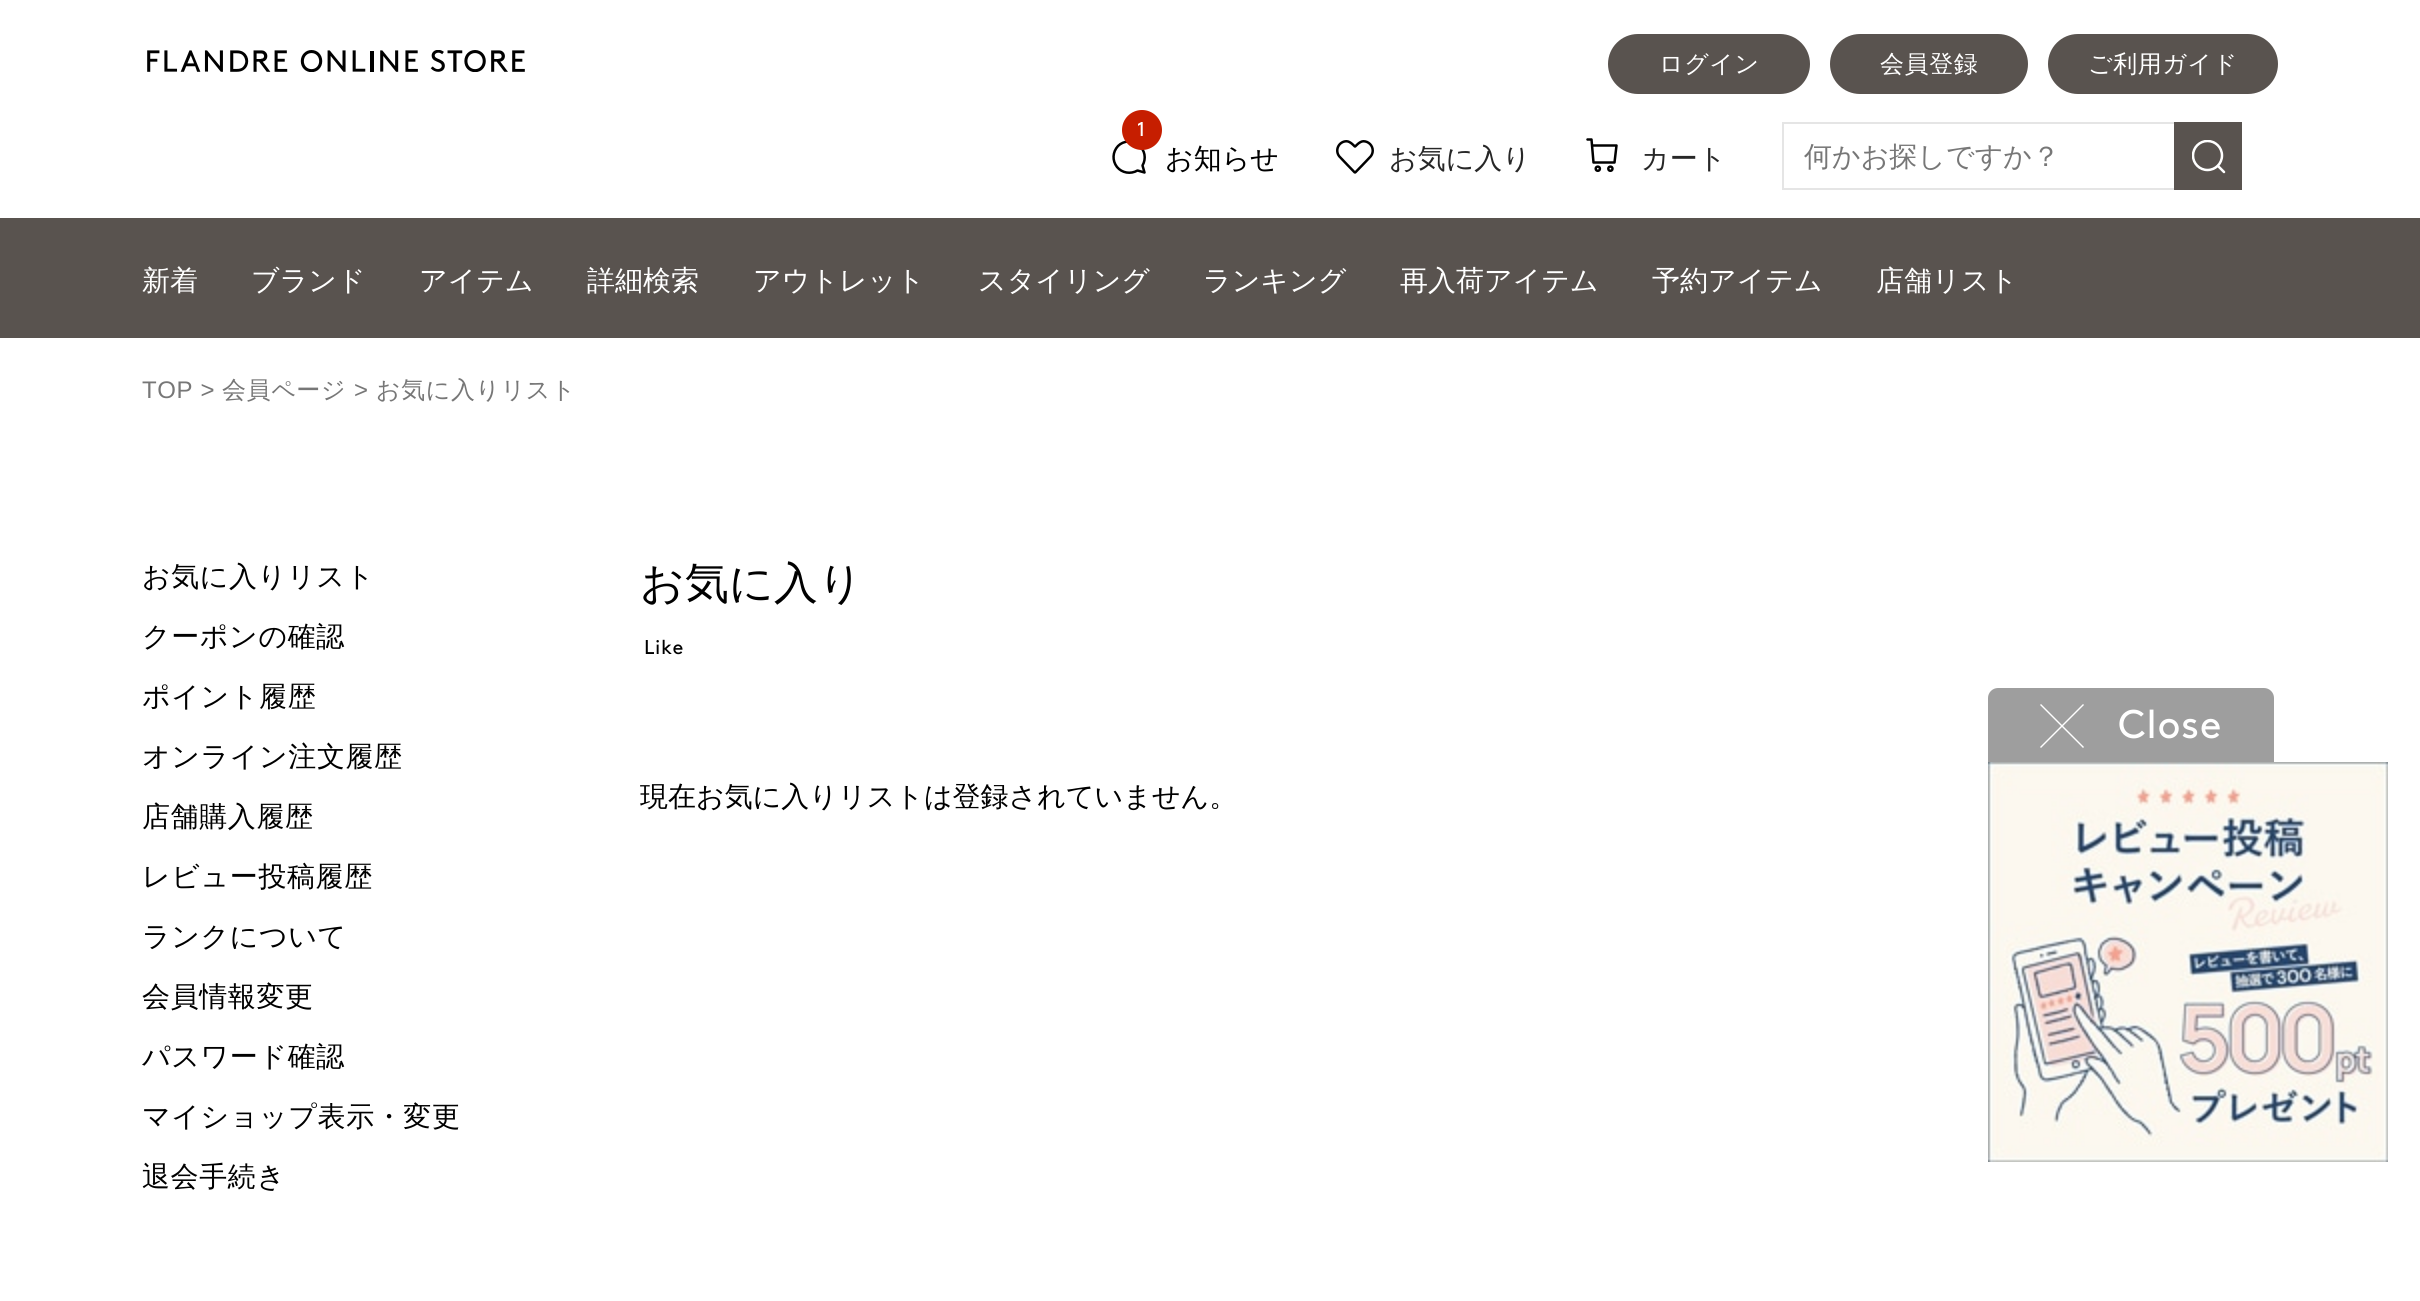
import math
import cairo

surface = cairo.ImageSurface(cairo.FORMAT_RGB24, 2420, 1301)
cr = cairo.Context(surface)
options = cairo.FontOptions()
options.set_hint_metrics(cairo.HINT_METRICS_OFF)
options.set_hint_style(cairo.HINT_STYLE_NONE)
cr.set_font_options(options)
cr.set_miter_limit(4)


def rgb(code):
    cr.set_source_rgb(*(v / 255 for v in bytes.fromhex(code[-6:])))


def tracked(x, y, s, letter, word):
    cr.move_to(x, y)
    for ch in s:
        cr.show_text(ch)
        cr.rel_move_to(letter + word * (ch == ' '), 0)


def rrect(x, y, w, h, r):
    cr.new_sub_path()
    for i, (u, v) in enumerate([(x + w - r, y + h - r), (x + r, y + h - r), (x + r, y + r), (x + w - r, y + r)]):
        cr.arc(u, v, r, i * math.pi / 2, (i + 1) * math.pi / 2)
    cr.close_path()


def image(path, x, y, w, h):
    cr.save()
    cr.set_source_surface(cairo.ImageSurface.create_from_png(path), x, y)
    cr.rectangle(x, y, w, h)
    cr.fill()
    cr.restore()


rgb("#ffffff")
cr.paint()
image("img/1.png", 147, 50, 378, 22)
rgb("#59534f")
rrect(1608, 34, 202, 60, 30)
cr.fill()
rrect(1830, 34, 198, 60, 30)
cr.fill()
rrect(2048, 34, 230, 60, 30)
cr.fill()
cr.new_path()
cr.move_to(1144.5, 172.5)
cr.line_to(1142.5, 165.5)
cr.curve_to(1146.5, 158.5, 1145, 150, 1138.5, 145)
cr.curve_to(1132.5, 140, 1123.5, 140.5, 1118, 146)
cr.curve_to(1112.5, 152, 1112, 160.5, 1117, 167)
cr.curve_to(1122, 173, 1130.5, 174.5, 1137.5, 170.5)
cr.close_path()
rgb("#000000")
cr.set_line_width(2.5)
cr.set_line_cap(cairo.LINE_CAP_ROUND)
cr.set_line_join(cairo.LINE_JOIN_ROUND)
cr.stroke()
rgb("#c61e00")
cr.arc(1142, 130, 20, 0, 2 * math.pi)
cr.fill()
image("img/2.png", 1336, 140, 38, 34)
cr.new_path()
cr.move_to(1592, 145.5)
cr.line_to(1616.5, 145.5)
cr.line_to(1614.5, 162.5)
cr.line_to(1593.5, 162.5)
cr.line_to(1591.5, 139.5)
cr.line_to(1587.5, 139.5)
rgb("#000000")
cr.stroke()
cr.arc(1597.8, 168.7, 2.1, 0, 2 * math.pi)
cr.set_line_cap(cairo.LINE_CAP_BUTT)
cr.set_line_join(cairo.LINE_JOIN_MITER)
cr.stroke()
cr.arc(1610.4, 168.7, 2.1, 0, 2 * math.pi)
cr.stroke()
cr.rectangle(1783, 123, 458, 66)
rgb("#e5e5e5")
cr.set_line_width(2)
cr.stroke()
rgb("#59534f")
cr.rectangle(2174, 122, 68, 68)
cr.fill()
cr.save()
cr.rectangle(2192, 140, 34, 34)
cr.clip()
cr.arc(2207.5, 155.5, 14.5, 0, 2 * math.pi)
rgb("#ffffff")
cr.set_line_width(2.5)
cr.stroke()
cr.restore()
cr.new_path()
cr.move_to(2224, 172)
cr.line_to(2218, 166)
rgb("#ffffff")
cr.set_line_width(2.5)
cr.set_line_cap(cairo.LINE_CAP_ROUND)
cr.stroke()
rgb("#59534f")
cr.rectangle(0, 218, 2420, 120)
cr.fill()
rgb("#9e9e9e")
cr.new_path()
cr.move_to(1998, 688)
cr.line_to(2264, 688)
cr.curve_to(2269.5, 688, 2274, 692.5, 2274, 698)
cr.line_to(2274, 762)
cr.line_to(1988, 762)
cr.line_to(1988, 698)
cr.curve_to(1988, 692.5, 1992.5, 688, 1998, 688)
cr.close_path()
cr.fill()
rgb("#ffffff")
cr.new_path()
cr.move_to(2040, 747)
cr.line_to(2083, 704)
cr.line_to(2084, 705)
cr.line_to(2041, 748)
cr.close_path()
cr.fill()
cr.new_path()
cr.move_to(2041, 704)
cr.line_to(2084, 747)
cr.line_to(2083, 748)
cr.line_to(2040, 705)
cr.close_path()
cr.fill()
image("img/3.png", 1988, 762, 400, 400)
cr.select_font_face("WenQuanYi Zen Hei Medium")
cr.set_font_size(24)
for x, y, s in [
    (1659, 72, "ログイン"),
    (1880, 72, "会員登録"),
    (2088, 72, "ご利用ガイド"),
]:
    tracked(x, y, s, 0.6, 0)
cr.select_font_face("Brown")
cr.set_font_size(20)
tracked(1137, 136, "1", 0.6, 0)
cr.select_font_face("WenQuanYi Zen Hei Medium")
cr.set_font_size(28)
rgb("#000000")
cr.move_to(1165, 168)
cr.show_text("お知らせ")
rgb("#272727")
cr.move_to(1389, 168)
cr.show_text("お気に入り")
cr.move_to(1641, 168)
cr.show_text("カート")
rgb("#777777")
cr.move_to(1804, 166)
cr.show_text("何かお探しですか？")
rgb("#ffffff")
for x, y, s in [
    (142, 290, "新着"),
    (251, 290, "ブランド"),
    (419, 290, "アイテム"),
    (587, 290, "詳細検索"),
    (753, 290, "アウトレット"),
    (978, 290, "スタイリング"),
    (1203, 290, "ランキング"),
    (1400, 290, "再入荷アイテム"),
    (1652, 290, "予約アイテム"),
    (1876, 290, "店舗リスト"),
]:
    cr.move_to(x, y)
    cr.show_text(s)
cr.select_font_face("Liberation Sans")
cr.set_font_size(24)
rgb("#777777")
tracked(142, 398, "TOP >", 0.6, 0)
cr.select_font_face("WenQuanYi Zen Hei Medium")
tracked(222, 398, "会員ページ", 0.6, 0)
cr.select_font_face("Liberation Sans")
tracked(354, 398, ">", 0.6, 0)
cr.select_font_face("WenQuanYi Zen Hei Medium")
tracked(376, 398, "お気に入りリスト", 0.6, 0)
cr.set_font_size(28)
rgb("#000000")
for x, y, s in [
    (142, 586, "お気に入りリスト"),
    (142, 646, "クーポンの確認"),
    (142, 706, "ポイント履歴"),
    (142, 766, "オンライン注文履歴"),
    (142, 826, "店舗購入履歴"),
    (142, 886, "レビュー投稿履歴"),
    (142, 946, "ランクについて"),
    (142, 1006, "会員情報変更"),
    (142, 1066, "パスワード確認"),
    (142, 1126, "マイショップ表示・変更"),
    (142, 1186, "退会手続き"),
]:
    tracked(x, y, s, 0.6, 0)
cr.set_font_size(44)
cr.move_to(640, 598)
cr.show_text("お気に入り")
cr.select_font_face("Brown")
cr.set_font_size(20)
tracked(644, 654, "Like", 0.6, 0)
cr.select_font_face("WenQuanYi Zen Hei Medium")
cr.set_font_size(28)
cr.move_to(640, 806)
cr.show_text("現在お気に入りリストは登録されていません。")
cr.select_font_face("Brown")
cr.set_font_size(40)
rgb("#ffffff")
tracked(2118, 738, "Close", 0.6, 0)
surface.write_to_png("page.png")
